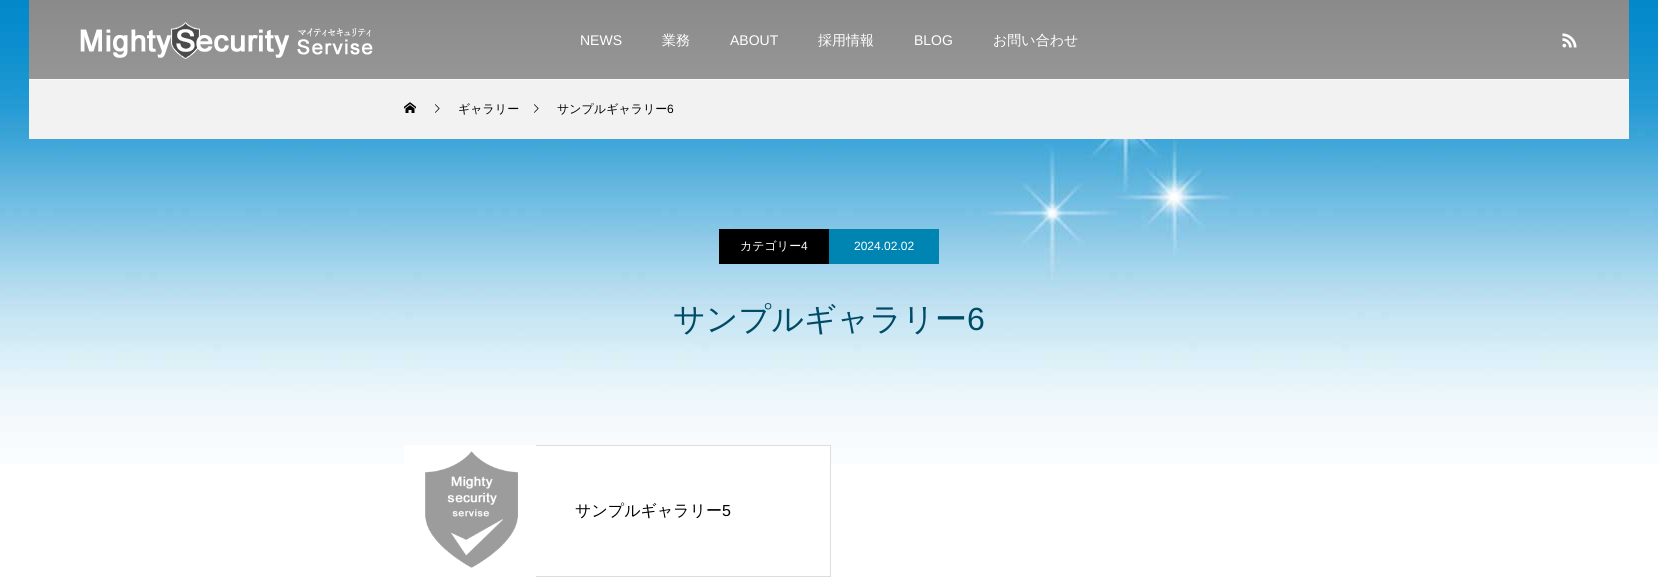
import math
import cairo

surface = cairo.ImageSurface(cairo.FORMAT_RGB24, 1658, 578)
cr = cairo.Context(surface)
options = cairo.FontOptions()
options.set_hint_metrics(cairo.HINT_METRICS_OFF)
options.set_hint_style(cairo.HINT_STYLE_NONE)
cr.set_font_options(options)
cr.set_miter_limit(4)


def rgb(code):
    cr.set_source_rgb(*(v / 255 for v in bytes.fromhex(code[-6:])))


def image(path, x, y, w, h):
    cr.save()
    cr.set_source_surface(cairo.ImageSurface.create_from_png(path), x, y)
    cr.rectangle(x, y, w, h)
    cr.fill()
    cr.restore()


rgb("#ffffff")
cr.paint()
image("img/1.png", 0, 0, 1658, 464)
gradient = cairo.LinearGradient(829, 0, 829, 395)
gradient.add_color_stop_rgba(0, 0.541, 0.541, 0.541, 1)
gradient.add_color_stop_rgba(1, 0.773, 0.773, 0.773, 1)
cr.set_source(gradient)
cr.rectangle(29, 0, 1600, 79)
cr.fill()
rgb("#f9f9f9")
cr.rectangle(29, 79, 1600, 1)
cr.fill()
image("img/2.png", 80, 22, 293, 37)
image("img/3.png", 1562, 33, 15, 15)
rgb("#f2f2f2")
cr.rectangle(29, 80, 1600, 59)
cr.fill()
image("img/4.png", 404, 102, 12, 11)
image("img/5.png", 435, 104, 5, 9)
image("img/5.png", 534, 104, 5, 9)
for x, y, w, h, color in [
    (719, 229, 110, 35, "#000000"),
    (829, 229, 110, 35, "#0085b2"),
    (536, 446, 294, 18, "#ffffff"),
]:
    rgb(color)
    cr.rectangle(x, y, w, h)
    cr.fill()
cr.rectangle(404.5, 445.5, 426, 131)
rgb("#dddddd")
cr.set_line_width(1)
cr.stroke()
rgb("#ffffff")
cr.rectangle(404, 445, 132, 132)
cr.fill()
image("img/6.png", 425, 451, 93, 117)
cr.select_font_face("Liberation Sans")
cr.set_font_size(14)
cr.move_to(580, 45)
cr.show_text("NEWS")
cr.select_font_face("WenQuanYi Zen Hei Medium")
cr.move_to(662, 45)
cr.show_text("業務")
cr.select_font_face("Liberation Sans")
cr.move_to(730, 45)
cr.show_text("ABOUT")
cr.select_font_face("WenQuanYi Zen Hei Medium")
cr.move_to(818, 45)
cr.show_text("採用情報")
cr.select_font_face("Liberation Sans")
cr.move_to(914, 45)
cr.show_text("BLOG")
cr.select_font_face("WenQuanYi Zen Hei Medium")
cr.move_to(993, 45)
cr.show_text("お問い合わせ")
cr.set_font_size(12)
rgb("#000000")
cr.move_to(458, 113)
cr.show_text("ギャラリー")
cr.move_to(557, 113)
cr.show_text("サンプルギャラリー")
cr.select_font_face("Liberation Sans")
cr.move_to(667, 113)
cr.show_text("6")
cr.select_font_face("WenQuanYi Zen Hei Medium")
rgb("#ffffff")
cr.move_to(740, 250)
cr.show_text("カテゴリー")
cr.select_font_face("Liberation Sans")
cr.move_to(801, 250)
cr.show_text("4")
cr.move_to(854, 250)
cr.show_text("2024.02.02")
cr.select_font_face("WenQuanYi Zen Hei Medium")
cr.set_font_size(32)
rgb("#004b66")
cr.move_to(673, 330)
cr.show_text("サンプルギャラリー")
cr.select_font_face("Liberation Sans")
cr.move_to(967, 330)
cr.show_text("6")
cr.select_font_face("WenQuanYi Zen Hei Medium")
cr.set_font_size(16)
rgb("#000000")
cr.move_to(575, 516)
cr.show_text("サンプルギャラリー")
cr.select_font_face("Liberation Sans")
cr.move_to(722, 516)
cr.show_text("5")
surface.write_to_png("page.png")
